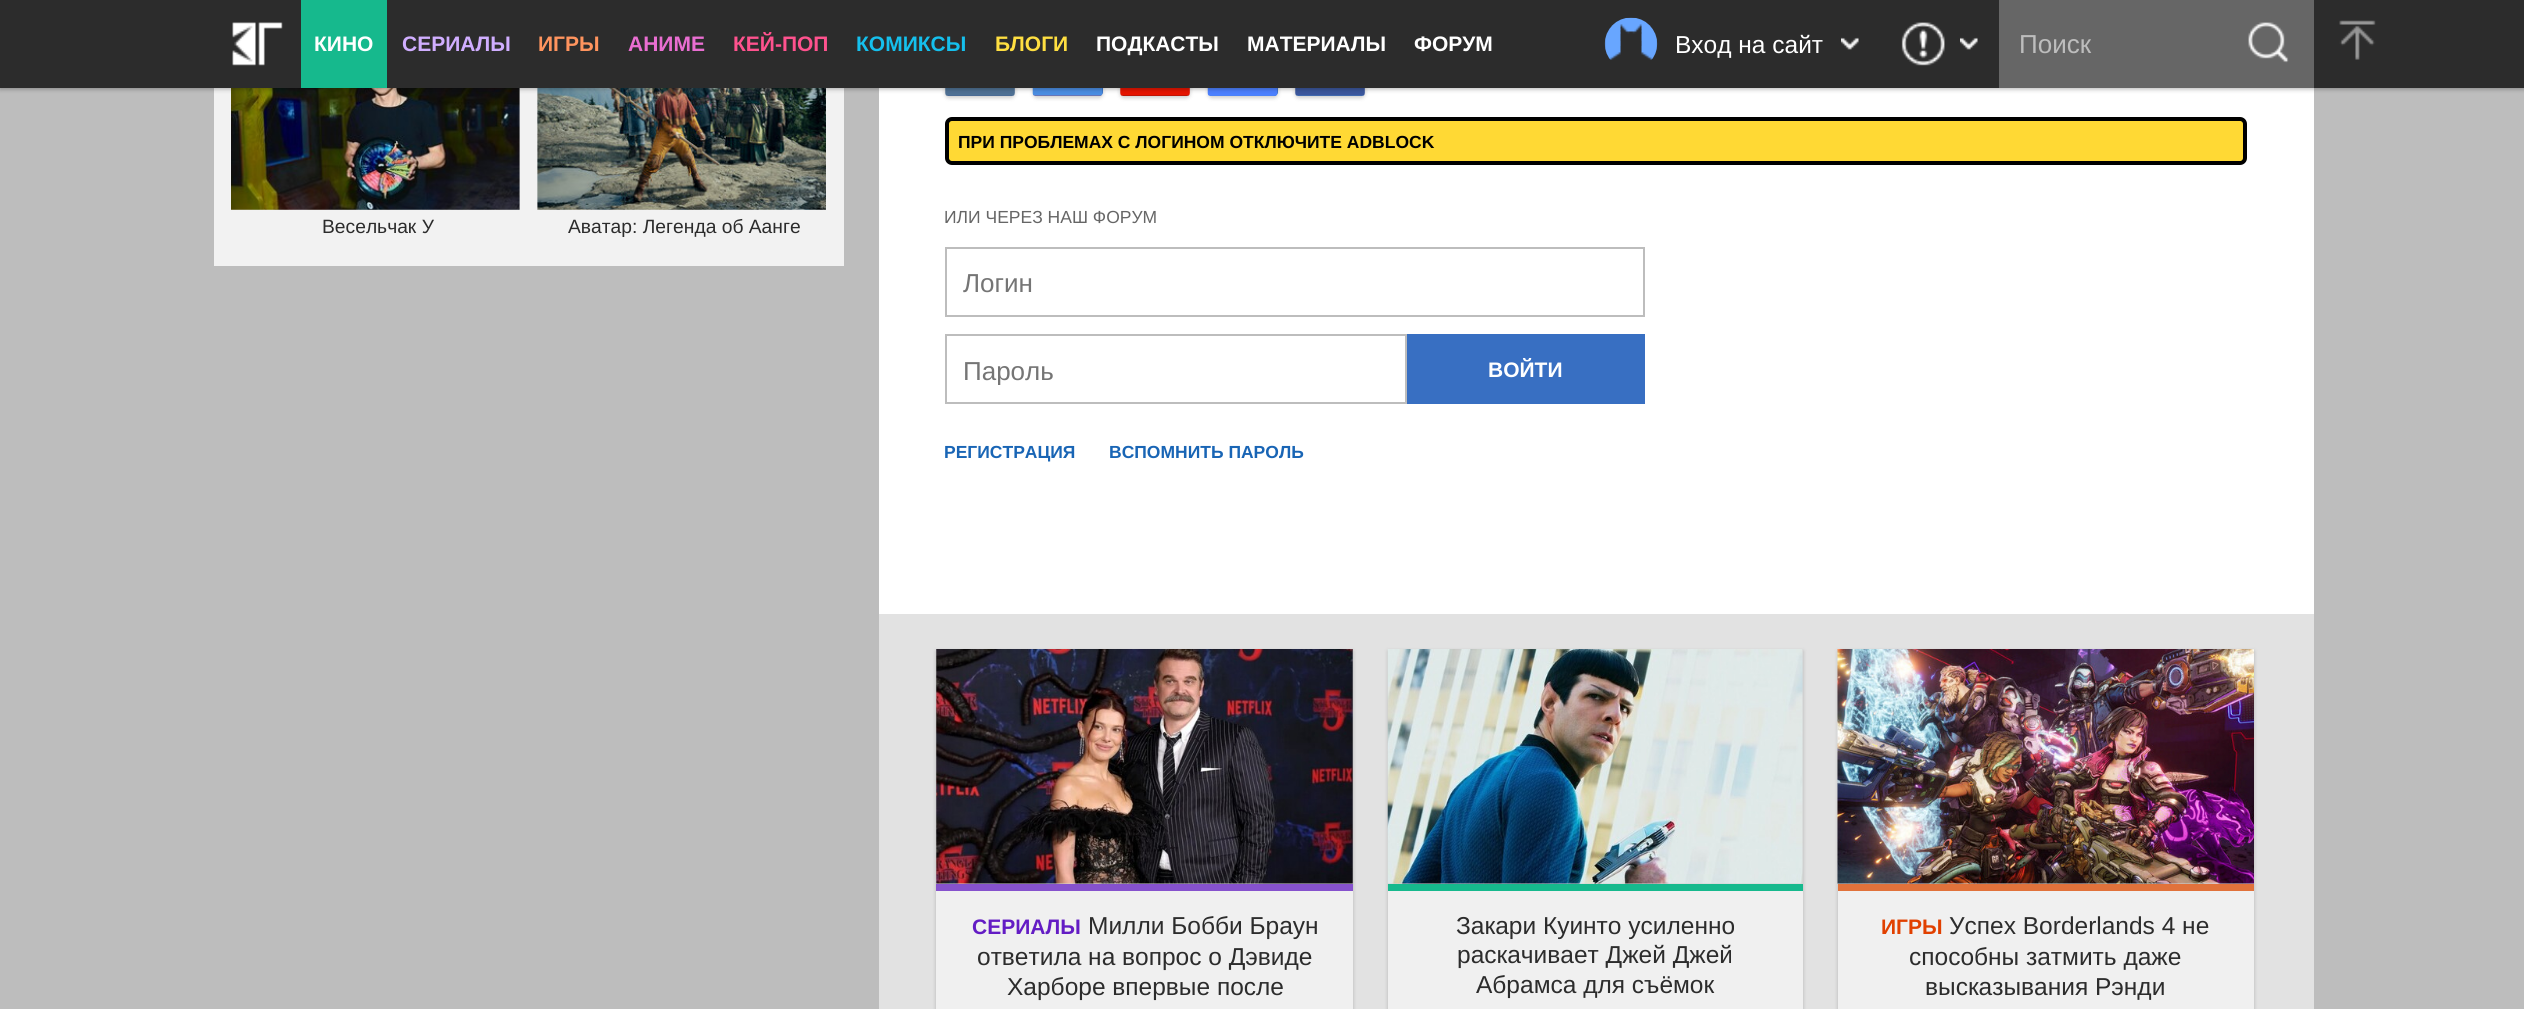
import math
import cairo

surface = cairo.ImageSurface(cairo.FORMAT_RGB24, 2524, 1009)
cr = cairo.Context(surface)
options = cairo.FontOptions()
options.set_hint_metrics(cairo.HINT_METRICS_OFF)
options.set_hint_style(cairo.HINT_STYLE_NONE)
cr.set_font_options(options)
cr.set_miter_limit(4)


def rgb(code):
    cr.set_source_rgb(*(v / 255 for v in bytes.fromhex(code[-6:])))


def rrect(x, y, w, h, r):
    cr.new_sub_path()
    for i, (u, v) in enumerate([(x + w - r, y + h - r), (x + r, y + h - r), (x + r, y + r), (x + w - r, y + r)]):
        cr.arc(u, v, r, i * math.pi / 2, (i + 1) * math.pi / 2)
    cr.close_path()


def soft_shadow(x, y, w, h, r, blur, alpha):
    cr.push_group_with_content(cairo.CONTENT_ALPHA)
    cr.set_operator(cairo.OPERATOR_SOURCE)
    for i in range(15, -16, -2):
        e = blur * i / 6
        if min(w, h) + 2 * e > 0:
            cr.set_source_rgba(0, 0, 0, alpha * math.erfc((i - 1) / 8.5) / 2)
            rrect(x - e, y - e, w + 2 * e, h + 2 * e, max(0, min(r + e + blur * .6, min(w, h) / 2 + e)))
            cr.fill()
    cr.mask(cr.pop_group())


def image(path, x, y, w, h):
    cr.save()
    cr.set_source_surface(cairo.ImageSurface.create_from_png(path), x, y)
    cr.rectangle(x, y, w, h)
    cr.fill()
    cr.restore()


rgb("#bdbdbd")
cr.paint()
rgb("#f2f2f2")
cr.rectangle(214, 88, 630, 178)
cr.fill()
rgb("#e2e2e2")
cr.rectangle(231, 88, 289, 122)
cr.fill()
image("img/8.png", 231, 88, 289, 122)
cr.rectangle(537, 88, 289, 122)
cr.fill()
image("img/9.png", 537, 88, 289, 122)
rgb("#ffffff")
cr.rectangle(879, 88, 1435, 526)
cr.fill()
rgb("#000000")
soft_shadow(945, 28, 70, 70, 4, 2, 0.2)
image("img/10.png", 945, 88, 70, 8)
soft_shadow(1033, 28, 70, 70, 4, 2, 0.2)
rgb("#386fc2")
rrect(1033, 26, 70, 70, 4)
cr.fill()
image("img/11.png", 1032, 88, 71, 8)
rgb("#000000")
soft_shadow(1120, 28, 70, 70, 4, 2, 0.2)
image("img/12.png", 1120, 88, 70, 8)
soft_shadow(1208, 28, 70, 70, 4, 2, 0.2)
rgb("#386fc2")
rrect(1208, 26, 70, 70, 4)
cr.fill()
image("img/13.png", 1207, 88, 71, 8)
rgb("#000000")
soft_shadow(1295, 28, 70, 70, 4, 2, 0.2)
image("img/14.png", 1295, 88, 70, 8)
soft_shadow(0, 2, 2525, 87, 0, 2.5, 0.3)
rgb("#2c2c2c")
cr.rectangle(0, 0, 2524, 88)
cr.fill()
image("img/1.png", 232, 22, 51, 44)
rgb("#16b98d")
cr.rectangle(301, 0, 86, 88)
cr.fill()
image("img/2.png", 1604, 17, 54, 43)
image("img/3.png", 1841, 37, 18, 13)
image("img/4.png", 1901, 22, 44, 44)
image("img/5.png", 1960, 37, 18, 13)
rgb("#666666")
cr.rectangle(1999, 0, 315, 88)
cr.fill()
image("img/6.png", 2248, 22, 41, 41)
image("img/7.png", 2339, 20, 37, 40)
rgb("#ffd934")
rrect(947, 119, 1298, 44, 5)
cr.fill_preserve()
rgb("#000000")
cr.set_line_width(4)
cr.stroke()
cr.rectangle(946, 248, 698, 68)
rgb("#bdbdbd")
cr.set_line_width(2)
cr.stroke()
cr.rectangle(946, 335, 460, 68)
cr.stroke()
rgb("#386fc2")
cr.rectangle(1407, 334, 238, 70)
cr.fill()
rgb("#e2e2e2")
cr.rectangle(879, 614, 1435, 395)
cr.fill()
rgb("#000000")
soft_shadow(936, 651, 417, 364, 0, 2, 0.2)
rgb("#f0f0f0")
cr.rectangle(936, 891, 417, 118)
cr.fill()
rgb("#d3d3d3")
cr.rectangle(936, 649, 417, 235)
cr.fill()
image("img/15.png", 936, 649, 417, 235)
rgb("#8652cd")
cr.rectangle(936, 884, 417, 7)
cr.fill()
rgb("#000000")
soft_shadow(1388, 651, 415, 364, 0, 2, 0.2)
rgb("#f0f0f0")
cr.rectangle(1388, 891, 415, 118)
cr.fill()
rgb("#d3d3d3")
cr.rectangle(1388, 649, 415, 235)
cr.fill()
image("img/16.png", 1387, 649, 416, 235)
rgb("#16b98d")
cr.rectangle(1388, 884, 415, 7)
cr.fill()
rgb("#000000")
soft_shadow(1838, 651, 416, 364, 0, 2, 0.2)
rgb("#f0f0f0")
cr.rectangle(1838, 891, 416, 118)
cr.fill()
rgb("#d3d3d3")
cr.rectangle(1838, 883, 416, 1)
cr.fill()
image("img/17.png", 1837, 649, 417, 235)
rgb("#e1723b")
cr.rectangle(1838, 884, 416, 7)
cr.fill()
cr.select_font_face("Liberation Sans", cairo.FONT_SLANT_NORMAL, cairo.FONT_WEIGHT_BOLD)
cr.set_font_size(21)
rgb("#ffffff")
cr.move_to(314, 51)
cr.show_text("КИНО")
rgb("#d0aeff")
cr.move_to(402, 51)
cr.show_text("СЕРИАЛЫ")
rgb("#ff945e")
cr.move_to(538, 51)
cr.show_text("ИГРЫ")
rgb("#e96ed1")
cr.move_to(628, 51)
cr.show_text("АНИМЕ")
rgb("#ff528e")
cr.move_to(733, 51)
cr.show_text("КЕЙ-ПОП")
rgb("#15c0ed")
cr.move_to(856, 51)
cr.show_text("КОМИКСЫ")
rgb("#ffdf41")
cr.move_to(995, 51)
cr.show_text("БЛОГИ")
rgb("#ffffff")
for x, y, s in [
    (1096, 51, "ПОДКАСТЫ"),
    (1247, 51, "МАТЕРИАЛЫ"),
    (1414, 51, "ФОРУМ"),
]:
    cr.move_to(x, y)
    cr.show_text(s)
cr.select_font_face("Liberation Sans")
cr.set_font_size(24.5)
cr.move_to(1675, 53)
cr.show_text("Вход на сайт")
cr.set_font_size(26)
rgb("#bdbdbd")
cr.move_to(2019, 53)
cr.show_text("Поиск")
cr.set_font_size(19.25)
rgb("#2c2c2c")
cr.move_to(322, 233)
cr.show_text("Весельчак У")
cr.move_to(568, 233)
cr.show_text("Аватар: Легенда об Аанге")
cr.select_font_face("Liberation Sans", cairo.FONT_SLANT_NORMAL, cairo.FONT_WEIGHT_BOLD)
cr.set_font_size(17.5)
rgb("#000000")
cr.move_to(958, 148)
cr.show_text("ПРИ ПРОБЛЕМАХ С ЛОГИНОМ ОТКЛЮЧИТЕ ADBLOCK")
cr.select_font_face("Liberation Sans")
rgb("#666666")
cr.move_to(944, 223)
cr.show_text("ИЛИ ЧЕРЕЗ НАШ ФОРУМ")
cr.set_font_size(26)
rgb("#757575")
cr.move_to(963, 292)
cr.show_text("Логин")
cr.save()
cr.rectangle(964, 355, 424, 30)
cr.clip()
cr.move_to(963, 380)
cr.show_text("Пароль")
cr.restore()
cr.select_font_face("Liberation Sans", cairo.FONT_SLANT_NORMAL, cairo.FONT_WEIGHT_BOLD)
cr.set_font_size(21)
rgb("#ffffff")
cr.move_to(1488, 377)
cr.show_text("ВОЙТИ")
cr.set_font_size(17.5)
rgb("#1965b5")
cr.move_to(944, 458)
cr.show_text("РЕГИСТРАЦИЯ")
cr.move_to(1109, 458)
cr.show_text("ВСПОМНИТЬ ПАРОЛЬ")
cr.set_font_size(21)
rgb("#631cc4")
cr.move_to(972, 934)
cr.show_text("СЕРИАЛЫ")
cr.select_font_face("Liberation Sans")
cr.set_font_size(24.5)
rgb("#2c2c2c")
for x, y, s in [
    (1088, 934, "Милли Бобби Браун"),
    (977, 965, "ответила на вопрос о Дэвиде"),
    (1007, 995, "Харборе впервые после"),
    (1456, 934, "Закари Куинто усиленно"),
    (1457, 963, "раскачивает Джей Джей"),
    (1476, 993, "Абрамса для съёмок"),
]:
    cr.move_to(x, y)
    cr.show_text(s)
cr.select_font_face("Liberation Sans", cairo.FONT_SLANT_NORMAL, cairo.FONT_WEIGHT_BOLD)
cr.set_font_size(21)
rgb("#e14000")
cr.move_to(1881, 934)
cr.show_text("ИГРЫ")
cr.select_font_face("Liberation Sans")
cr.set_font_size(24.5)
rgb("#2c2c2c")
for x, y, s in [
    (1949, 934, "Успех Borderlands 4 не"),
    (1909, 965, "способны затмить даже"),
    (1925, 995, "высказывания Рэнди"),
]:
    cr.move_to(x, y)
    cr.show_text(s)
surface.write_to_png("page.png")
